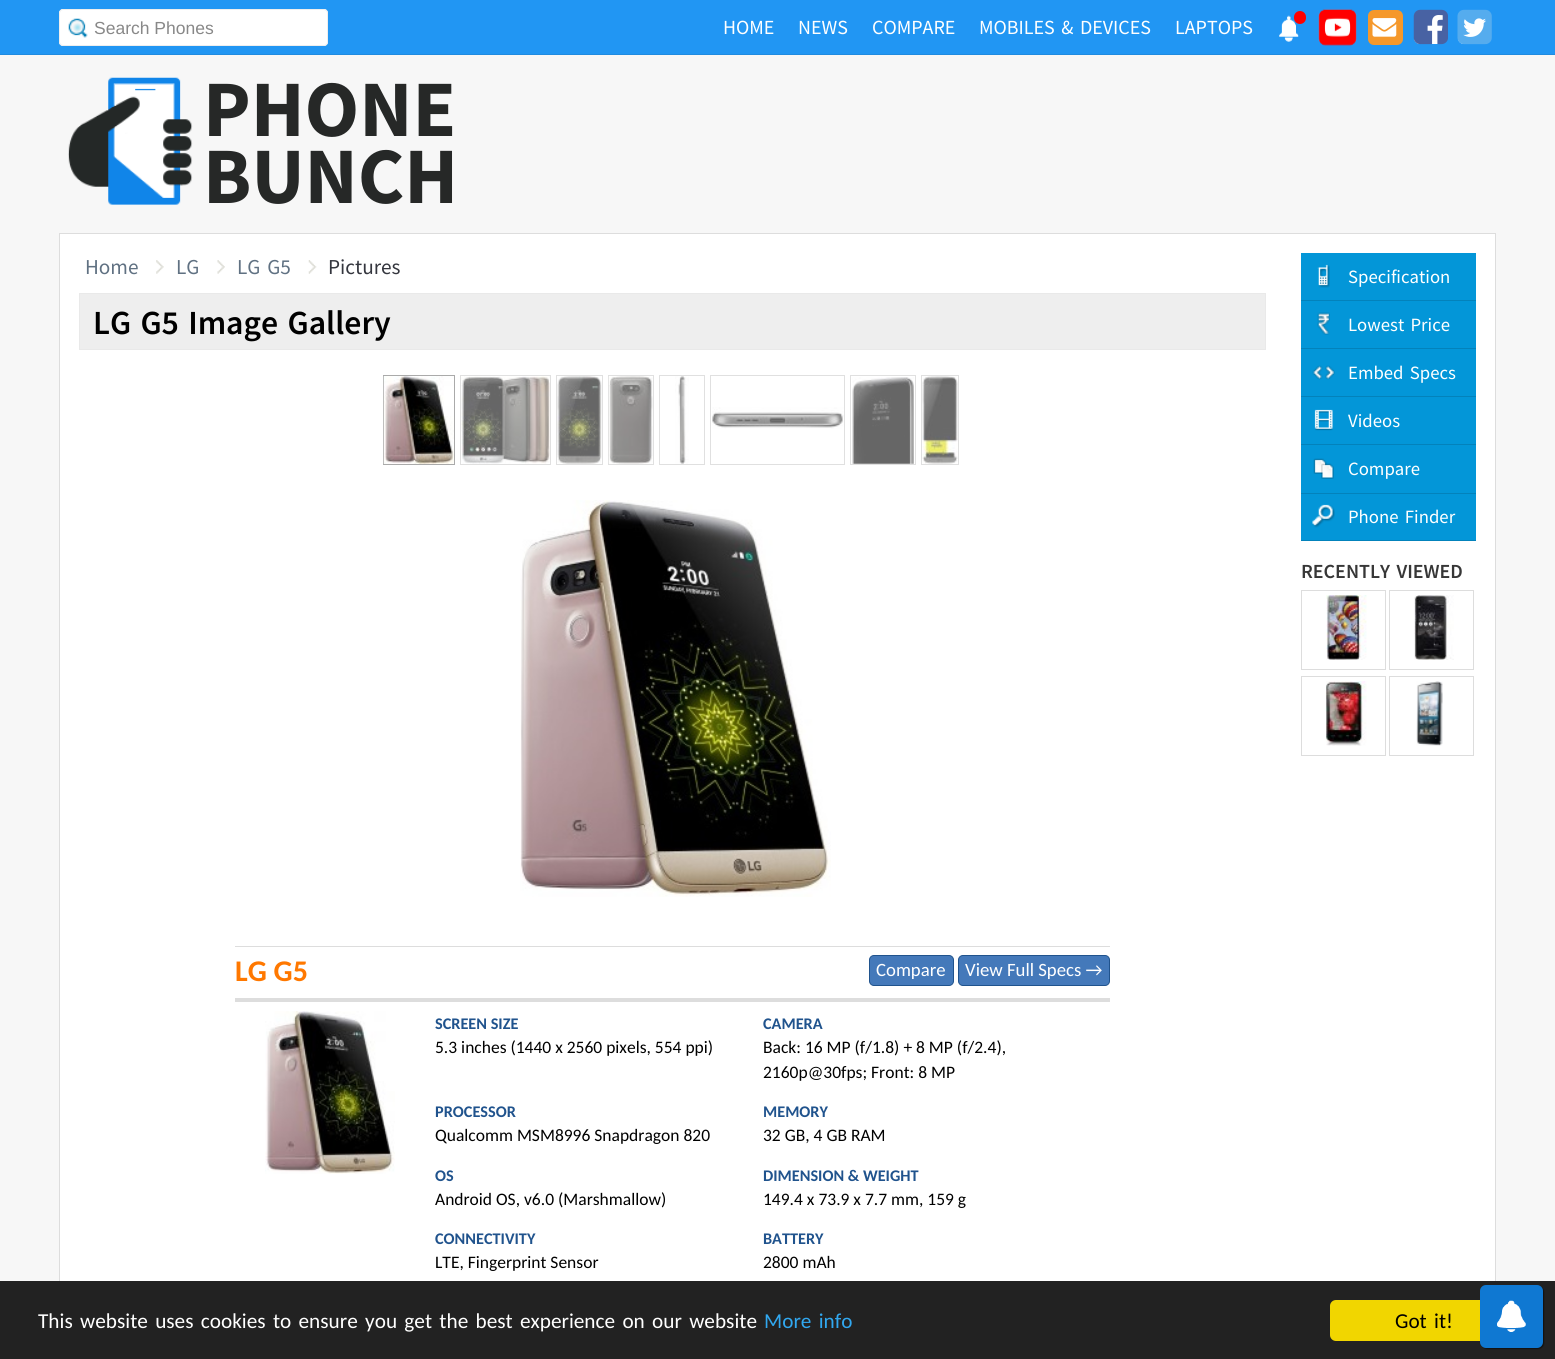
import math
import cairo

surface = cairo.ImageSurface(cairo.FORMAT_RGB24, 1555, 1359)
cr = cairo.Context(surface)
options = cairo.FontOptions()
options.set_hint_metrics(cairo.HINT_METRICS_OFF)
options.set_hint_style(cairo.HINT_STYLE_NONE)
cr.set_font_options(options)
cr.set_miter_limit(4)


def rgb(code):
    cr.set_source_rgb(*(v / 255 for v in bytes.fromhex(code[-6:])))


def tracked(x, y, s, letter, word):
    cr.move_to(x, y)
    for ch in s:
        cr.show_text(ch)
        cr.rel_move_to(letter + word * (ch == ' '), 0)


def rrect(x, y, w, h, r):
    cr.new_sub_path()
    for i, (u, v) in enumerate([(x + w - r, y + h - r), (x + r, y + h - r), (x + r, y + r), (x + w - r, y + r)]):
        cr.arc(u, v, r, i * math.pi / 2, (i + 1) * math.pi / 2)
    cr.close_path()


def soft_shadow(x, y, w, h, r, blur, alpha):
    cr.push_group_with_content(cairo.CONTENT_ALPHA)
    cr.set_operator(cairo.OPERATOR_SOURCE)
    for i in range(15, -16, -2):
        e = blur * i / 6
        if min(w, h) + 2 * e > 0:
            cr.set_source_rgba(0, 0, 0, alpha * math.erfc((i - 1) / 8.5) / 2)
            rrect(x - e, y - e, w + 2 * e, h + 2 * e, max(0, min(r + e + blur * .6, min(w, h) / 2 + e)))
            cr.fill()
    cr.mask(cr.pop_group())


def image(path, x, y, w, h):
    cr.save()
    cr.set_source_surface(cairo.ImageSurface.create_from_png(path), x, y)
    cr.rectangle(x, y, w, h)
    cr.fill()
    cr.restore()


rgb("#f7f7f7")
cr.paint()
rgb("#2196f3")
cr.rectangle(0, 0, 1555, 54)
cr.fill()
rgb("#208be0")
cr.rectangle(0, 54, 1555, 1)
cr.fill()
rgb("#ffffff")
rrect(59, 9, 269, 37, 4)
cr.fill()
image("img/1.png", 68, 18, 20, 20)
rrect(59.5, 9.5, 268, 36, 3.5)
rgb("#eeeeee")
cr.set_line_width(1)
cr.stroke()
image("img/2.png", 1279, 15, 20, 27)
rgb("#ff0000")
rrect(1294, 11, 12, 13, 6)
cr.fill()
image("img/3.png", 1318, 8, 39, 38)
rgb("#f5982b")
rrect(1368, 10, 35, 35, 6)
cr.fill()
image("img/4.png", 1372, 18, 25, 19)
rgb("#ffffff")
rrect(1414, 11, 32, 33, 6)
cr.fill()
image("img/5.png", 1413, 9, 35, 36)
rrect(1458, 11, 32, 33, 6)
cr.fill()
image("img/6.png", 1457, 9, 35, 36)
image("img/7.png", 68, 77, 125, 128)
cr.rectangle(60, 234, 1435, 1047)
cr.fill()
cr.rectangle(59.5, 233.5, 1436, 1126)
rgb("#dddddd")
cr.stroke()
image("img/8.png", 156, 260, 8, 14)
image("img/9.png", 217, 260, 8, 14)
image("img/10.png", 308, 260, 9, 14)
rgb("#eeeeee")
cr.rectangle(79.5, 293.5, 1186, 56)
cr.fill_preserve()
rgb("#e9e9e9")
cr.stroke()
cr.rectangle(383.5, 375.5, 71, 89)
rgb("#aaaaaa")
cr.stroke()
cr.rectangle(460.5, 375.5, 90, 89)
rgb("#e0e0e0")
cr.stroke()
cr.rectangle(556.5, 375.5, 46, 89)
cr.stroke()
cr.rectangle(608.5, 375.5, 45, 89)
cr.stroke()
cr.rectangle(659.5, 375.5, 45, 89)
cr.stroke()
cr.rectangle(710.5, 375.5, 134, 89)
cr.stroke()
cr.rectangle(850.5, 375.5, 65, 89)
cr.stroke()
cr.rectangle(921.5, 375.5, 37, 89)
cr.stroke()
image("img/11.png", 383, 376, 71, 88)
image("img/12.png", 461, 376, 89, 88)
image("img/13.png", 557, 376, 45, 88)
image("img/14.png", 608, 376, 45, 88)
image("img/15.png", 675, 376, 14, 88)
image("img/16.png", 712, 407, 132, 22)
image("img/17.png", 852, 377, 62, 87)
image("img/18.png", 922, 376, 36, 88)
image("img/19.png", 520, 500, 311, 397)
rgb("#dddddd")
cr.rectangle(235, 946, 875, 1)
cr.fill()
rgb("#4479ba")
rrect(869.5, 955.5, 84, 30, 4.5)
cr.fill_preserve()
rgb("#20538d")
cr.stroke()
rgb("#4479ba")
rrect(958.5, 955.5, 151, 30, 4.5)
cr.fill_preserve()
rgb("#20538d")
cr.stroke()
rgb("#dddddd")
cr.rectangle(235, 998, 875, 4)
cr.fill()
image("img/20.png", 265, 1011, 130, 163)
rgb("#0396d8")
cr.rectangle(1301, 253, 175, 47)
cr.fill()
rgb("#0382bb")
cr.rectangle(1301, 300, 175, 1)
cr.fill()
image("img/21.png", 1317, 264, 13, 24)
rgb("#0396d8")
cr.rectangle(1301, 301, 175, 47)
cr.fill()
rgb("#0382bb")
cr.rectangle(1301, 348, 175, 1)
cr.fill()
image("img/22.png", 1317, 312, 13, 23)
rgb("#0396d8")
cr.rectangle(1301, 349, 175, 95)
cr.fill()
rgb("#0382bb")
cr.rectangle(1301, 396, 175, 1)
cr.fill()
image("img/23.png", 1312, 365, 23, 15)
cr.rectangle(1301, 444, 175, 1)
cr.fill()
image("img/24.png", 1314, 409, 19, 22)
rgb("#0396d8")
cr.rectangle(1301, 445, 175, 48)
cr.fill()
rgb("#0382bb")
cr.rectangle(1301, 493, 175, 1)
cr.fill()
image("img/25.png", 1313, 458, 21, 21)
rgb("#0396d8")
cr.rectangle(1301, 494, 175, 46)
cr.fill()
rgb("#0382bb")
cr.rectangle(1301, 540, 175, 1)
cr.fill()
image("img/26.png", 1312, 504, 23, 24)
cr.rectangle(1301.5, 590.5, 84, 79)
rgb("#dddddd")
cr.stroke()
image("img/27.png", 1326, 595, 41, 65)
cr.rectangle(1389.5, 590.5, 84, 79)
cr.stroke()
image("img/28.png", 1414, 595, 40, 65)
cr.rectangle(1301.5, 676.5, 84, 79)
cr.stroke()
image("img/29.png", 1325, 681, 42, 65)
cr.rectangle(1389.5, 676.5, 84, 79)
cr.stroke()
image("img/30.png", 1416, 681, 27, 65)
rgb("#222222")
cr.rectangle(0, 1281, 1555, 78)
cr.fill()
rgb("#f1d600")
rrect(1330, 1300, 188, 41, 6)
cr.fill()
rgb("#000000")
soft_shadow(1481, 1286, 63, 63, 6, 0.5, 0.5)
rgb("#0f78d2")
rrect(1480, 1285, 63, 63, 6)
cr.fill()
image("img/31.png", 1497, 1300, 29, 32)
cr.select_font_face("Liberation Sans")
cr.set_font_size(17.5)
rgb("#888888")
cr.move_to(94, 34)
cr.show_text("Search Phones")
cr.select_font_face("Source Sans Pro")
cr.set_font_size(20)
rgb("#ffffff")
for x, y, s in [
    (723, 34, "HOME"),
    (798, 34, "NEWS"),
    (872, 34, "COMPARE"),
]:
    cr.move_to(x, y)
    cr.show_text(s)
tracked(979, 34, "MOBILES & DEVICES", 0, 2.5)
cr.move_to(1175, 34)
cr.show_text("LAPTOPS")
cr.select_font_face("Source Sans Pro", cairo.FONT_SLANT_NORMAL, cairo.FONT_WEIGHT_BOLD)
cr.set_font_size(80)
rgb("#262827")
cr.move_to(203, 136)
cr.show_text("PHONE")
cr.move_to(203, 203)
cr.show_text("BUNCH")
cr.select_font_face("Source Sans Pro")
cr.set_font_size(21.25)
rgb("#607182")
cr.move_to(85, 274)
cr.show_text("Home")
cr.move_to(176, 274)
cr.show_text("LG")
tracked(237, 274, "LG G5", 0, 2.5)
rgb("#34363e")
cr.move_to(328, 274)
cr.show_text("Pictures")
cr.select_font_face("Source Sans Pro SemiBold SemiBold")
cr.set_font_size(33.75)
rgb("#000000")
tracked(93, 334, "LG G5 Image Gallery", 0, 2.5)
cr.select_font_face("Carlito", cairo.FONT_SLANT_NORMAL, cairo.FONT_WEIGHT_BOLD)
cr.set_font_size(30)
rgb("#ff7800")
cr.move_to(235, 981)
cr.show_text("LG G5")
cr.select_font_face("Carlito")
cr.set_font_size(18.75)
rgb("#ffffff")
cr.move_to(876, 976)
cr.show_text("Compare")
cr.move_to(965, 976)
cr.show_text("View Full Specs →")
cr.select_font_face("Carlito", cairo.FONT_SLANT_NORMAL, cairo.FONT_WEIGHT_BOLD)
cr.set_font_size(16.25)
rgb("#20538d")
cr.move_to(435, 1029)
cr.show_text("SCREEN SIZE")
cr.select_font_face("Carlito")
cr.set_font_size(17.5)
rgb("#000000")
cr.move_to(435, 1053)
cr.show_text("5.3 inches (1440 x 2560 pixels, 554 ppi)")
cr.select_font_face("Carlito", cairo.FONT_SLANT_NORMAL, cairo.FONT_WEIGHT_BOLD)
cr.set_font_size(16.25)
rgb("#20538d")
cr.move_to(763, 1029)
cr.show_text("CAMERA")
cr.select_font_face("Carlito")
cr.set_font_size(17.5)
rgb("#000000")
cr.move_to(763, 1053)
cr.show_text("Back: 16 MP (f/1.8) + 8 MP (f/2.4),")
cr.move_to(763, 1078)
cr.show_text("2160p@30fps; Front: 8 MP")
cr.select_font_face("Carlito", cairo.FONT_SLANT_NORMAL, cairo.FONT_WEIGHT_BOLD)
cr.set_font_size(16.25)
rgb("#20538d")
cr.move_to(435, 1117)
cr.show_text("PROCESSOR")
cr.select_font_face("Carlito")
cr.set_font_size(17.5)
rgb("#000000")
cr.move_to(435, 1141)
cr.show_text("Qualcomm MSM8996 Snapdragon 820")
cr.select_font_face("Carlito", cairo.FONT_SLANT_NORMAL, cairo.FONT_WEIGHT_BOLD)
cr.set_font_size(16.25)
rgb("#20538d")
cr.move_to(763, 1117)
cr.show_text("MEMORY")
cr.select_font_face("Carlito")
cr.set_font_size(17.5)
rgb("#000000")
cr.move_to(763, 1141)
cr.show_text("32 GB, 4 GB RAM")
cr.select_font_face("Carlito", cairo.FONT_SLANT_NORMAL, cairo.FONT_WEIGHT_BOLD)
cr.set_font_size(16.25)
rgb("#20538d")
cr.move_to(435, 1181)
cr.show_text("OS")
cr.select_font_face("Carlito")
cr.set_font_size(17.5)
rgb("#000000")
cr.move_to(435, 1205)
cr.show_text("Android OS, v6.0 (Marshmallow)")
cr.select_font_face("Carlito", cairo.FONT_SLANT_NORMAL, cairo.FONT_WEIGHT_BOLD)
cr.set_font_size(16.25)
rgb("#20538d")
cr.move_to(763, 1181)
cr.show_text("DIMENSION & WEIGHT")
cr.select_font_face("Carlito")
cr.set_font_size(17.5)
rgb("#000000")
cr.move_to(763, 1205)
cr.show_text("149.4 x 73.9 x 7.7 mm, 159 g")
cr.select_font_face("Carlito", cairo.FONT_SLANT_NORMAL, cairo.FONT_WEIGHT_BOLD)
cr.set_font_size(16.25)
rgb("#20538d")
cr.move_to(435, 1244)
cr.show_text("CONNECTIVITY")
cr.select_font_face("Carlito")
cr.set_font_size(17.5)
rgb("#000000")
cr.move_to(435, 1268)
cr.show_text("LTE, Fingerprint Sensor")
cr.select_font_face("Carlito", cairo.FONT_SLANT_NORMAL, cairo.FONT_WEIGHT_BOLD)
cr.set_font_size(16.25)
rgb("#20538d")
cr.move_to(763, 1244)
cr.show_text("BATTERY")
cr.select_font_face("Carlito")
cr.set_font_size(17.5)
rgb("#000000")
cr.move_to(763, 1268)
cr.show_text("2800 mAh")
cr.select_font_face("Source Sans Pro")
cr.set_font_size(18.75)
rgb("#ffffff")
cr.move_to(1348, 283)
cr.show_text("Specification")
tracked(1348, 331, "Lowest Price", 0, 2.5)
tracked(1348, 379, "Embed Specs", 0, 2.5)
cr.move_to(1348, 427)
cr.show_text("Videos")
cr.move_to(1348, 475)
cr.show_text("Compare")
tracked(1348, 523, "Phone Finder", 0, 2.5)
cr.select_font_face("Source Sans Pro SemiBold SemiBold")
cr.set_font_size(20)
rgb("#373737")
tracked(1301, 578, "RECENTLY VIEWED", 0, 2.5)
cr.select_font_face("Carlito")
cr.set_font_size(21.25)
rgb("#ffffff")
tracked(38, 1328, "This website uses cookies to ensure you get the best experience on our website", 0, 2.5)
rgb("#31a8f0")
tracked(764, 1328, "More info", 0, 2.5)
rgb("#000000")
tracked(1395, 1328, "Got it!", 0, 2.5)
surface.write_to_png("page.png")
